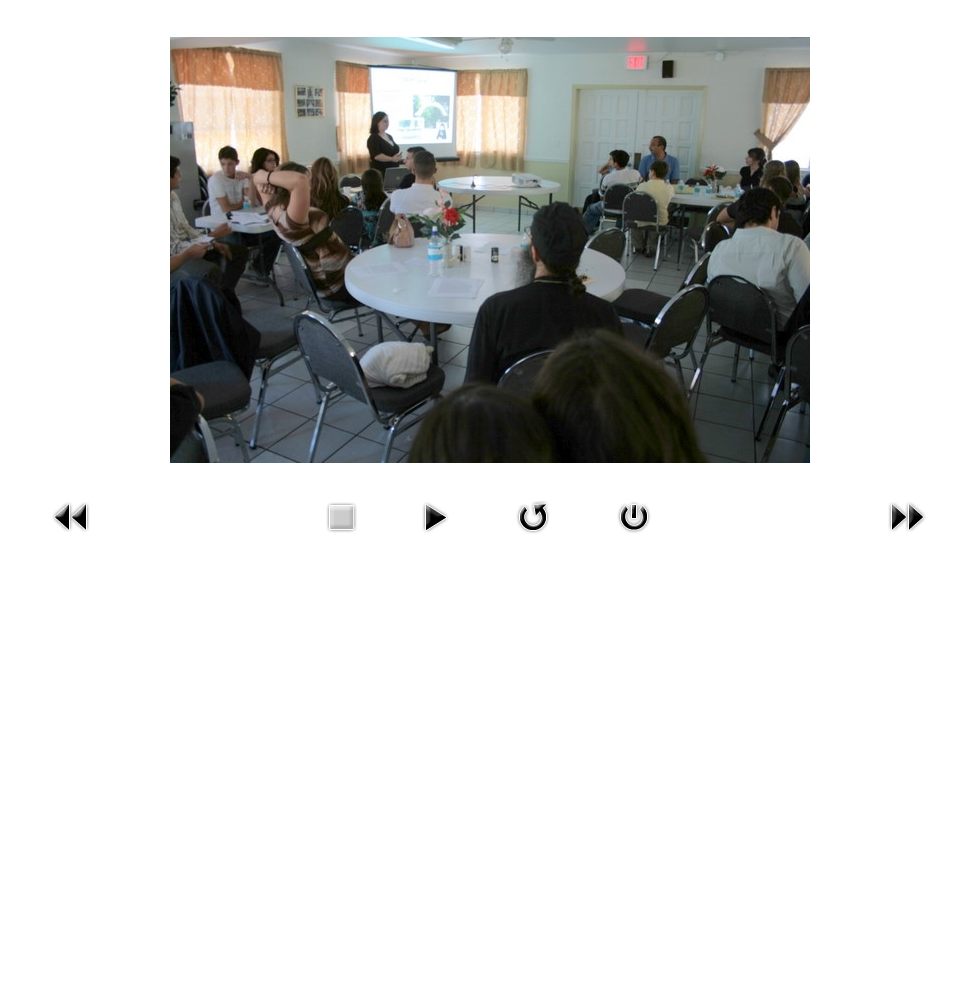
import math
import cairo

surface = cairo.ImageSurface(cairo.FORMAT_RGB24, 979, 997)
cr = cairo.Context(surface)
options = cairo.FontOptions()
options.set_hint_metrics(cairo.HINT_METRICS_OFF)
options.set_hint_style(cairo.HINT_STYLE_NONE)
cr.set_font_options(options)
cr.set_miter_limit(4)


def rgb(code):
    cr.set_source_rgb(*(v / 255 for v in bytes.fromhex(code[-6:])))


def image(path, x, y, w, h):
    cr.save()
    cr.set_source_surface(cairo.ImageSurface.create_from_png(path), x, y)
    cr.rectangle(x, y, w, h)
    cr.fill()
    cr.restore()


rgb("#ffffff")
cr.paint()
image("img/1.png", 170, 37, 640, 426)
image("img/2.png", 52, 502, 38, 30)
image("img/3.png", 326, 502, 31, 31)
image("img/4.png", 422, 502, 27, 31)
image("img/5.png", 516, 500, 34, 34)
image("img/6.png", 617, 501, 34, 33)
image("img/7.png", 888, 502, 38, 30)
surface.write_to_png("page.png")
